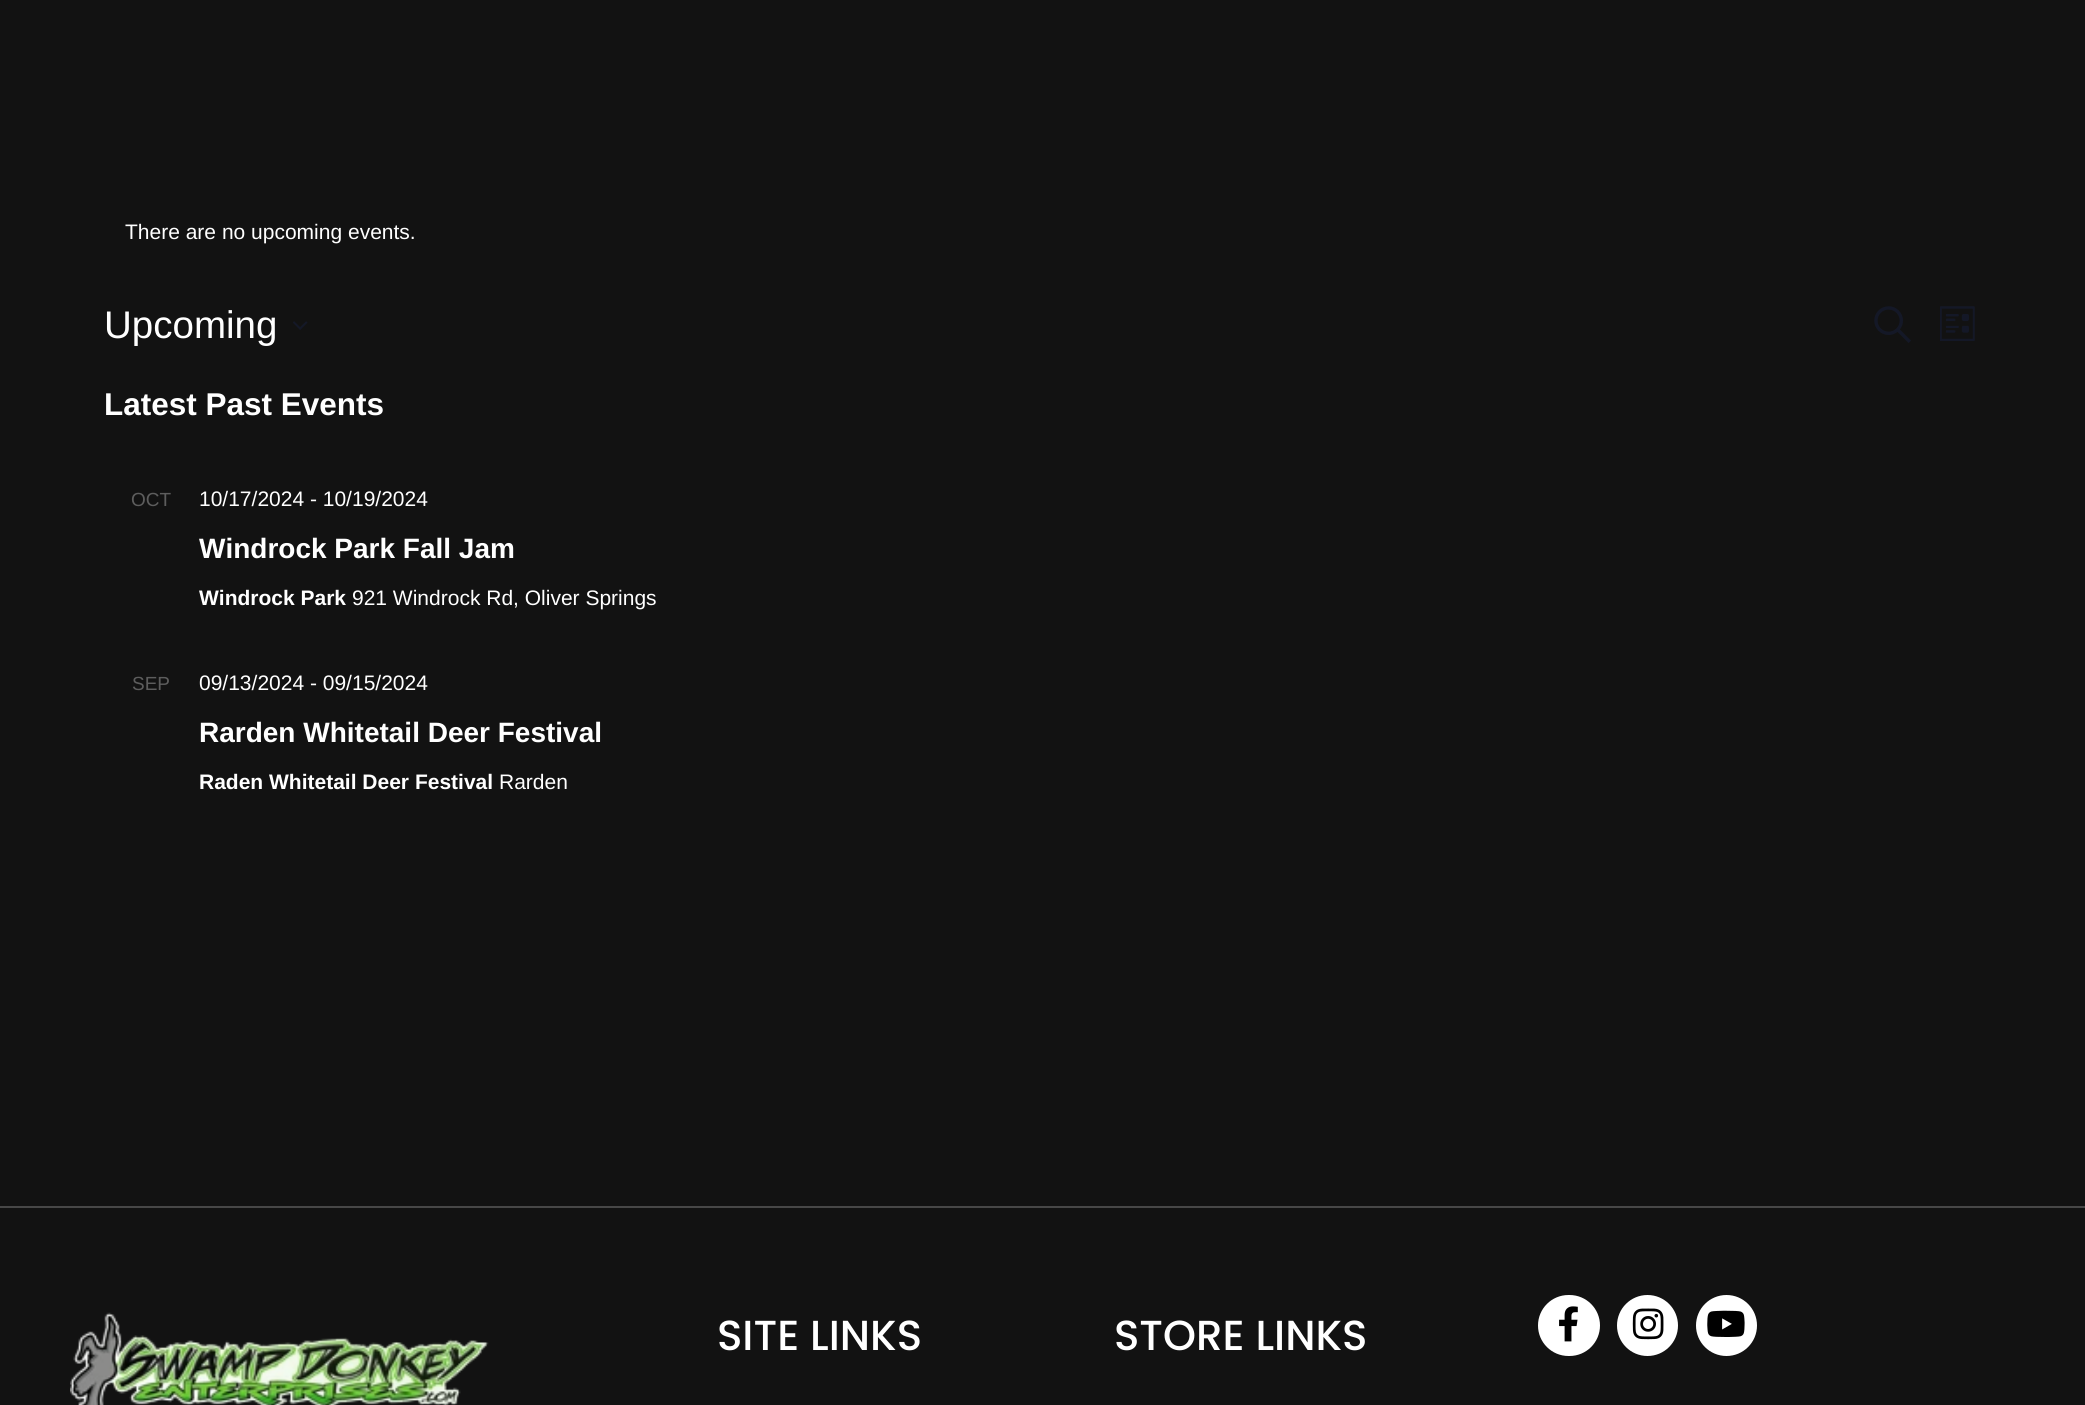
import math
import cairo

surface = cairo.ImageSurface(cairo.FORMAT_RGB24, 2085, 1405)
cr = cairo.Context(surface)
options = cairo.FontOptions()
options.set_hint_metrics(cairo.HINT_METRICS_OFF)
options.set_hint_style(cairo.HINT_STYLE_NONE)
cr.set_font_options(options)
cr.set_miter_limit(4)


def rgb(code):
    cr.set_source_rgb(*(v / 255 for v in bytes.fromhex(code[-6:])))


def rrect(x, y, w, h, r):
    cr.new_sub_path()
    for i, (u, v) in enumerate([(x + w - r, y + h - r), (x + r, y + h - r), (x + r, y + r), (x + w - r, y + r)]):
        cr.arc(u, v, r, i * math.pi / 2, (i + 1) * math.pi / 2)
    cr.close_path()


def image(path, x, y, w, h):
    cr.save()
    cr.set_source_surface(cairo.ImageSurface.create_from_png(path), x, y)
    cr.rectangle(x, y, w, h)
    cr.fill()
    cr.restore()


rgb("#121212")
cr.paint()
image("img/1.png", 293, 321, 15, 9)
image("img/2.png", 1874, 306, 37, 37)
image("img/3.png", 1940, 306, 35, 35)
rgb("#474747")
cr.rectangle(0, 1206, 2085, 2)
cr.fill()
image("img/4.png", 70, 1312, 419, 93)
rgb("#ffffff")
rrect(1538, 1295, 62, 61, 30.5)
cr.fill()
image("img/5.png", 1559, 1306, 19, 36)
cr.arc(1647.5, 1325.5, 30.5, 0, 2 * math.pi)
cr.fill()
image("img/6.png", 1632, 1308, 32, 32)
cr.arc(1726.5, 1325.5, 30.5, 0, 2 * math.pi)
cr.fill()
image("img/7.png", 1707, 1310, 38, 27)
cr.select_font_face("Liberation Sans")
cr.set_font_size(21)
cr.move_to(125, 239)
cr.show_text("There are no upcoming events.")
cr.set_font_size(38.5)
cr.move_to(104, 338)
cr.show_text("Upcoming")
cr.select_font_face("Liberation Sans", cairo.FONT_SLANT_NORMAL, cairo.FONT_WEIGHT_BOLD)
cr.set_font_size(31.5)
cr.move_to(104, 415)
cr.show_text("Latest Past Events")
cr.select_font_face("Liberation Sans")
cr.set_font_size(19)
rgb("#5d5d5d")
cr.move_to(131, 506)
cr.show_text("OCT")
cr.set_font_size(21)
rgb("#ffffff")
cr.move_to(199, 506)
cr.show_text("10/17/2024 - 10/19/2024")
cr.select_font_face("Liberation Sans", cairo.FONT_SLANT_NORMAL, cairo.FONT_WEIGHT_BOLD)
cr.set_font_size(28)
cr.move_to(199, 558)
cr.show_text("Windrock Park Fall Jam")
cr.set_font_size(21)
cr.move_to(199, 605)
cr.show_text("Windrock Park")
cr.select_font_face("Liberation Sans")
cr.move_to(352, 605)
cr.show_text("921 Windrock Rd, Oliver Springs")
cr.set_font_size(19)
rgb("#5d5d5d")
cr.move_to(132, 690)
cr.show_text("SEP")
cr.set_font_size(21)
rgb("#ffffff")
cr.move_to(199, 690)
cr.show_text("09/13/2024 - 09/15/2024")
cr.select_font_face("Liberation Sans", cairo.FONT_SLANT_NORMAL, cairo.FONT_WEIGHT_BOLD)
cr.set_font_size(28)
cr.move_to(199, 742)
cr.show_text("Rarden Whitetail Deer Festival")
cr.set_font_size(21)
cr.move_to(199, 789)
cr.show_text("Raden Whitetail Deer Festival")
cr.select_font_face("Liberation Sans")
cr.move_to(499, 789)
cr.show_text("Rarden")
cr.select_font_face("Poppins Medium")
cr.set_font_size(42)
cr.move_to(717, 1350)
cr.show_text("SITE LINKS")
cr.move_to(1114, 1350)
cr.show_text("STORE LINKS")
surface.write_to_png("page.png")
